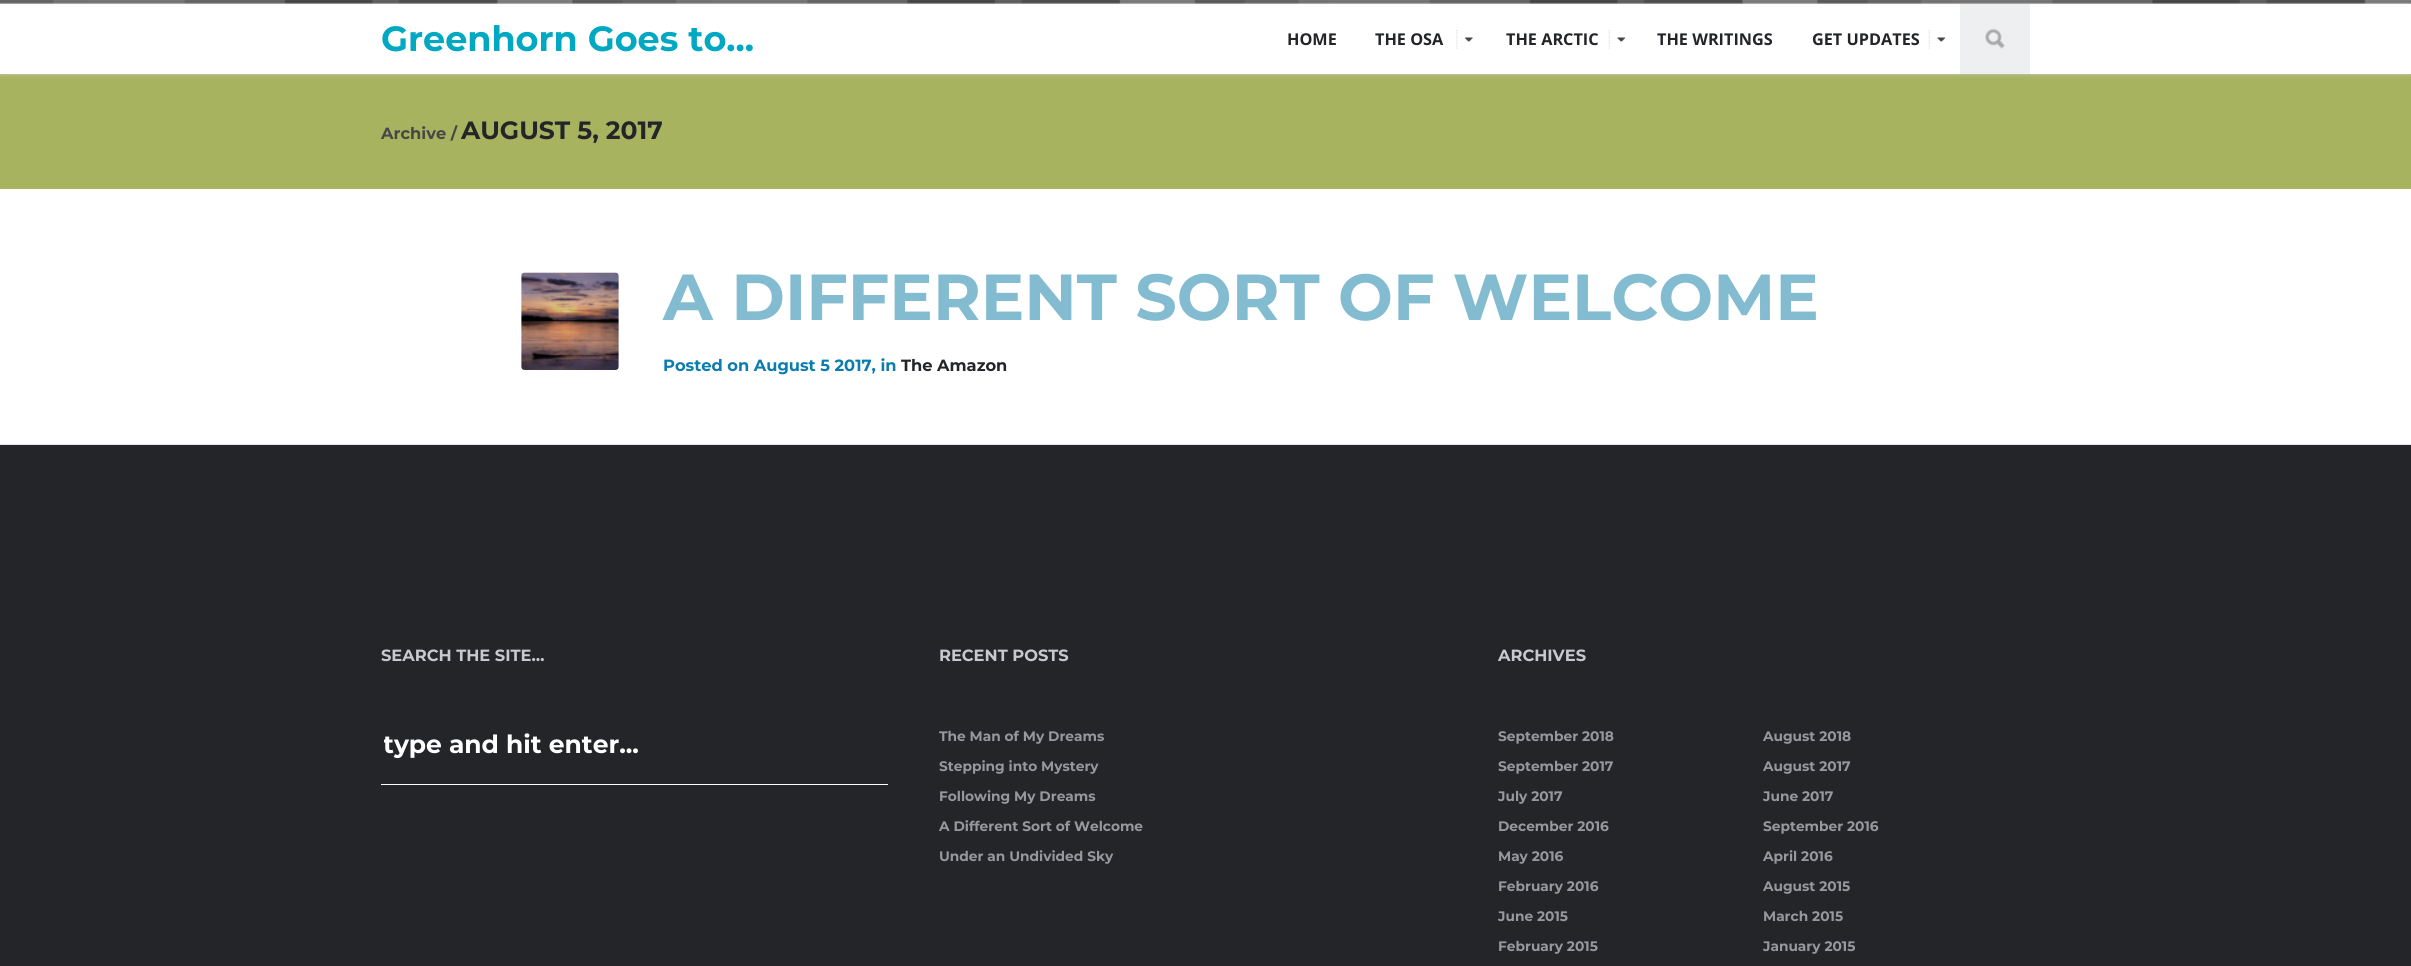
import math
import cairo

surface = cairo.ImageSurface(cairo.FORMAT_RGB24, 2411, 966)
cr = cairo.Context(surface)
options = cairo.FontOptions()
options.set_hint_metrics(cairo.HINT_METRICS_OFF)
options.set_hint_style(cairo.HINT_STYLE_NONE)
cr.set_font_options(options)
cr.set_miter_limit(4)


def rgb(code):
    cr.set_source_rgb(*(v / 255 for v in bytes.fromhex(code[-6:])))


def rrect(x, y, w, h, r):
    cr.new_sub_path()
    for i, (u, v) in enumerate([(x + w - r, y + h - r), (x + r, y + h - r), (x + r, y + r), (x + w - r, y + r)]):
        cr.arc(u, v, r, i * math.pi / 2, (i + 1) * math.pi / 2)
    cr.close_path()


def soft_shadow(x, y, w, h, r, blur, alpha):
    cr.push_group_with_content(cairo.CONTENT_ALPHA)
    cr.set_operator(cairo.OPERATOR_SOURCE)
    for i in range(15, -16, -2):
        e = blur * i / 6
        if min(w, h) + 2 * e > 0:
            cr.set_source_rgba(0, 0, 0, alpha * math.erfc((i - 1) / 8.5) / 2)
            rrect(x - e, y - e, w + 2 * e, h + 2 * e, max(0, min(r + e + blur * .6, min(w, h) / 2 + e)))
            cr.fill()
    cr.mask(cr.pop_group())


def image(path, x, y, w, h):
    cr.save()
    cr.set_source_surface(cairo.ImageSurface.create_from_png(path), x, y)
    cr.rectangle(x, y, w, h)
    cr.fill()
    cr.restore()


rgb("#ffffff")
cr.paint()
image("img/1.png", 0, 0, 2411, 4)
rgb("#a7b35f")
cr.rectangle(0, 74, 2411, 115)
cr.fill()
cr.save()
cr.set_fill_rule(cairo.FILL_RULE_EVEN_ODD)
cr.new_path()
cr.move_to(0, 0)
cr.line_to(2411, 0)
cr.line_to(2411, 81)
cr.line_to(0, 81)
cr.close_path()
cr.move_to(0, 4)
cr.line_to(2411, 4)
cr.line_to(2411, 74)
cr.line_to(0, 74)
cr.close_path()
cr.clip()
rgb("#cccccc")
soft_shadow(0, 4, 2411, 70, 0, 2, 1)
cr.restore()
image("img/2.png", 1456, 30, 17, 19)
image("img/3.png", 1608, 30, 17, 19)
image("img/4.png", 1928, 30, 17, 19)
rgb("#eeeff1")
cr.rectangle(1960, 4, 70, 70)
cr.fill()
image("img/5.png", 1985, 28, 20, 21)
rgb("#e7e7e8")
cr.rectangle(0, 444, 2411, 1)
cr.fill()
image("img/6.png", 521, 272, 98, 98)
image("img/7.png", 521, 272, 98, 98)
rgb("#242529")
cr.rectangle(0, 445, 2411, 521)
cr.fill()
rgb("#ffffff")
cr.rectangle(381, 784, 507, 1)
cr.fill()
cr.select_font_face("Montserrat Thin")
cr.set_font_size(35)
rgb("#00a8c2")
cr.move_to(381, 51)
cr.show_text("Greenhorn Goes to...")
cr.select_font_face("Open Sans", cairo.FONT_SLANT_NORMAL, cairo.FONT_WEIGHT_BOLD)
cr.set_font_size(16.25)
rgb("#242529")
for x, y, s in [
    (1287, 45, "HOME"),
    (1375, 45, "THE OSA"),
    (1506, 45, "THE ARCTIC"),
    (1657, 45, "THE WRITINGS"),
    (1812, 45, "GET UPDATES"),
]:
    cr.move_to(x, y)
    cr.show_text(s)
cr.select_font_face("Montserrat Thin")
rgb("#474747")
cr.move_to(381, 139)
cr.show_text("Archive /")
cr.set_font_size(25)
rgb("#242529")
cr.move_to(461, 139)
cr.show_text("AUGUST 5, 2017")
cr.set_font_size(65)
rgb("#83bcd0")
cr.move_to(663, 320)
cr.show_text("A DIFFERENT SORT OF WELCOME")
cr.set_font_size(16.25)
rgb("#0a7cae")
cr.move_to(663, 371)
cr.show_text("Posted on August 5 2017, in")
rgb("#242529")
cr.move_to(901, 371)
cr.show_text("The Amazon")
rgb("#c8c9ce")
cr.move_to(381, 661)
cr.show_text("SEARCH THE SITE…")
cr.save()
cr.rectangle(384, 729, 501, 30)
cr.clip()
cr.set_font_size(25)
rgb("#ffffff")
cr.move_to(383, 753)
cr.show_text("type and hit enter...")
cr.restore()
cr.move_to(939, 661)
cr.show_text("RECENT POSTS")
cr.set_font_size(13.75)
rgb("#97989e")
for x, y, s in [
    (939, 741, "The Man of My Dreams"),
    (939, 771, "Stepping into Mystery"),
    (939, 801, "Following My Dreams"),
    (939, 831, "A Different Sort of Welcome"),
    (939, 861, "Under an Undivided Sky"),
]:
    cr.move_to(x, y)
    cr.show_text(s)
cr.set_font_size(16.25)
rgb("#c8c9ce")
cr.move_to(1498, 661)
cr.show_text("ARCHIVES")
cr.set_font_size(13.75)
rgb("#97989e")
for x, y, s in [
    (1498, 741, "September 2018"),
    (1763, 741, "August 2018"),
    (1498, 771, "September 2017"),
    (1763, 771, "August 2017"),
    (1498, 801, "July 2017"),
    (1763, 801, "June 2017"),
    (1498, 831, "December 2016"),
    (1763, 831, "September 2016"),
    (1498, 861, "May 2016"),
    (1763, 861, "April 2016"),
    (1498, 891, "February 2016"),
    (1763, 891, "August 2015"),
    (1498, 921, "June 2015"),
    (1763, 921, "March 2015"),
    (1498, 951, "February 2015"),
    (1763, 951, "January 2015"),
]:
    cr.move_to(x, y)
    cr.show_text(s)
surface.write_to_png("page.png")
